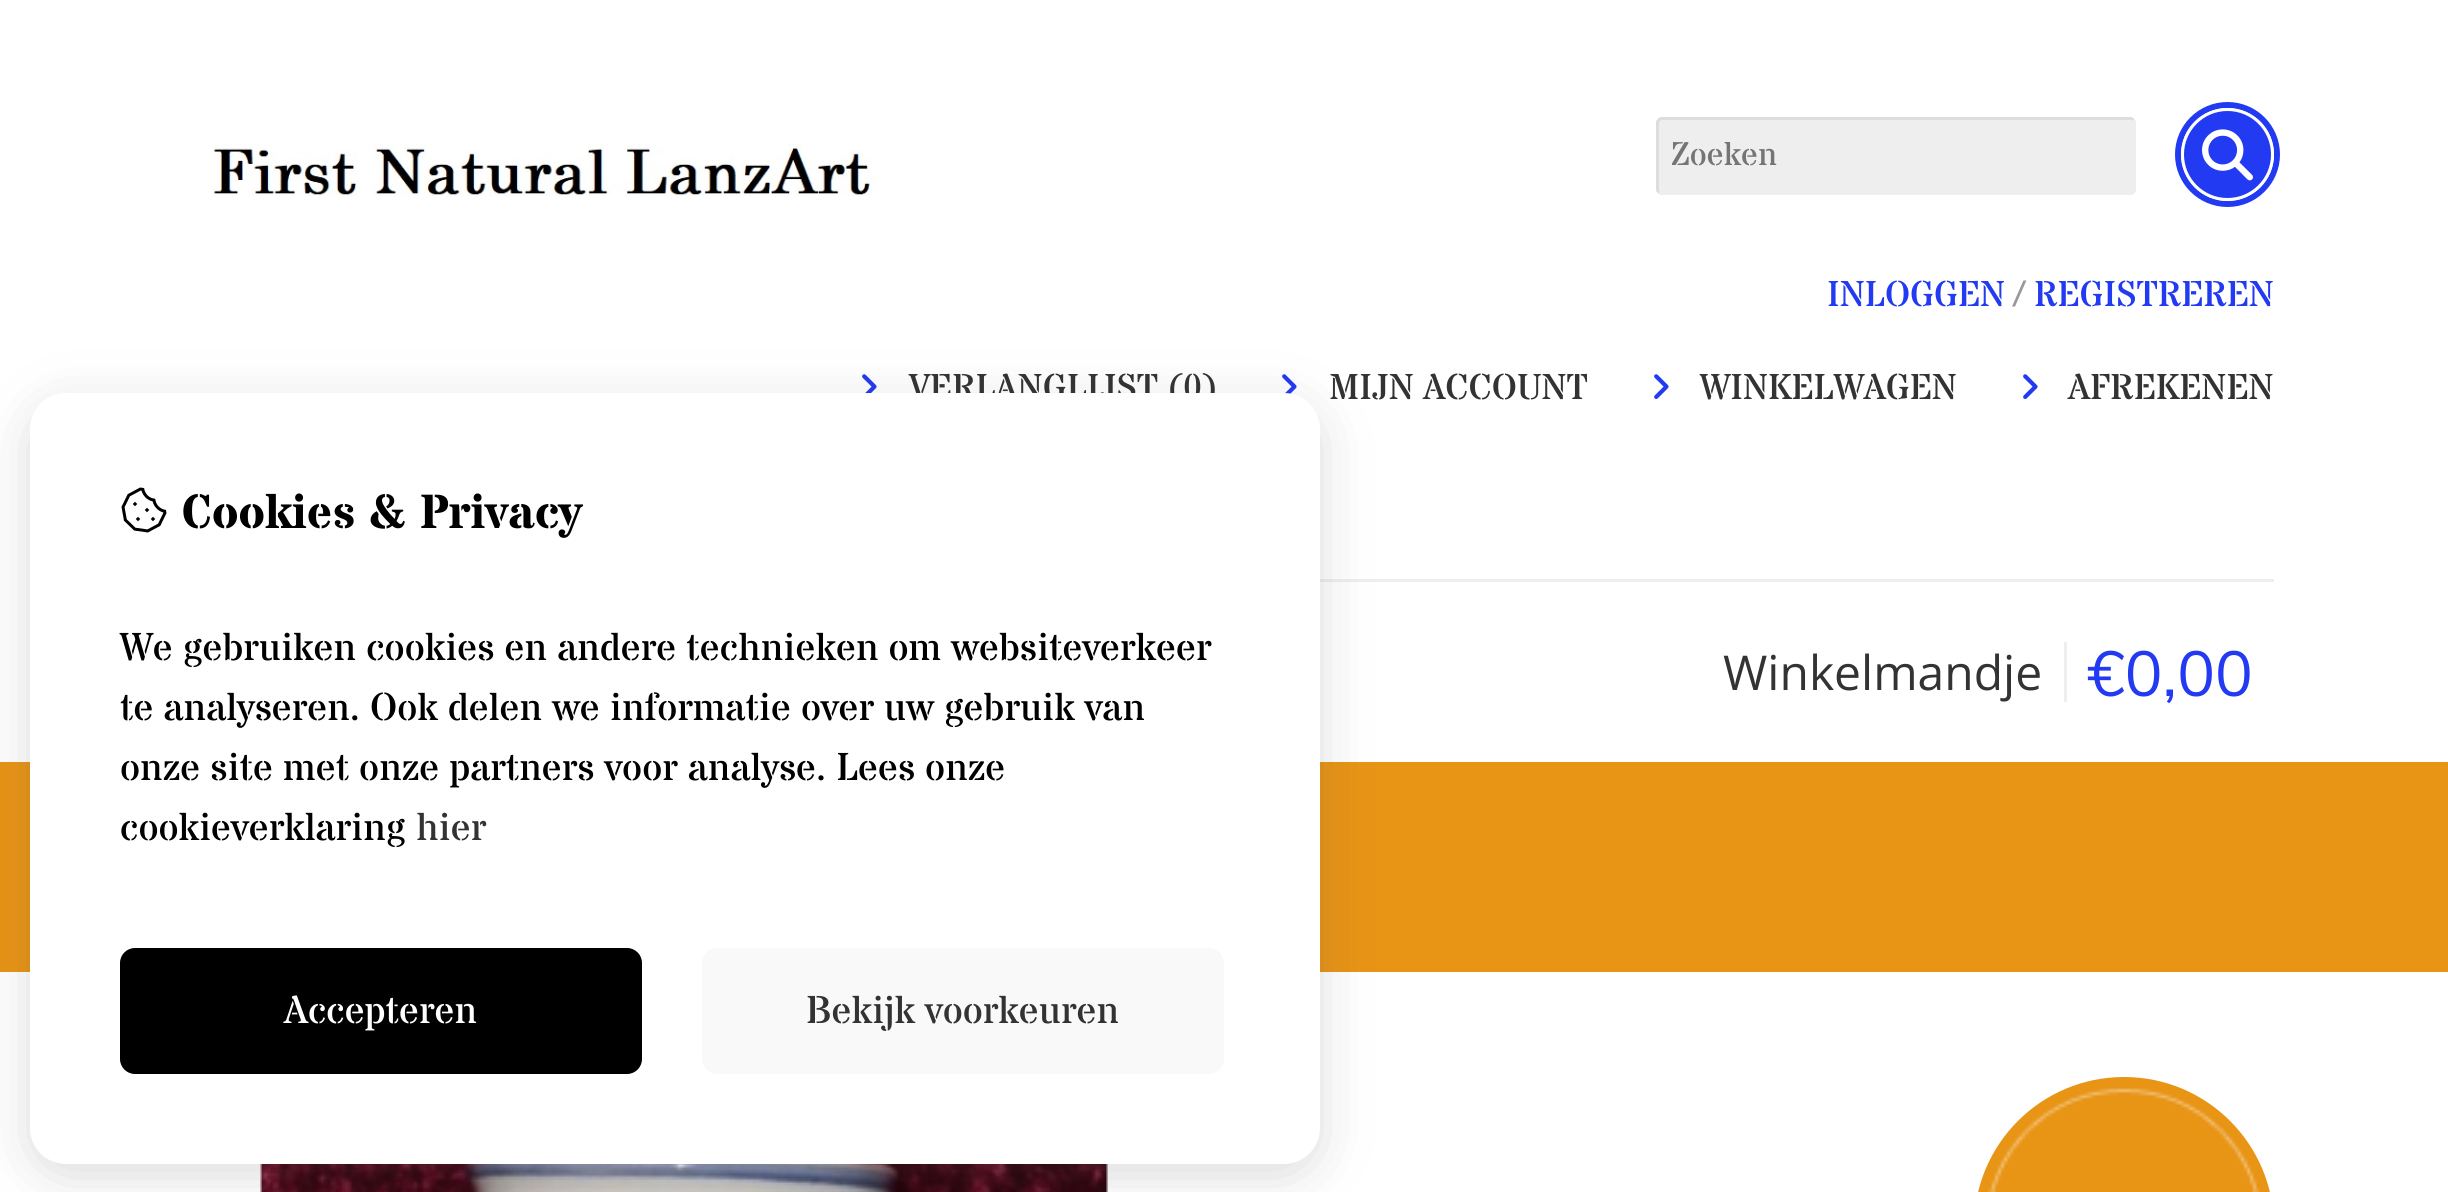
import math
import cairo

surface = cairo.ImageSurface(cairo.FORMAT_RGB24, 2448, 1192)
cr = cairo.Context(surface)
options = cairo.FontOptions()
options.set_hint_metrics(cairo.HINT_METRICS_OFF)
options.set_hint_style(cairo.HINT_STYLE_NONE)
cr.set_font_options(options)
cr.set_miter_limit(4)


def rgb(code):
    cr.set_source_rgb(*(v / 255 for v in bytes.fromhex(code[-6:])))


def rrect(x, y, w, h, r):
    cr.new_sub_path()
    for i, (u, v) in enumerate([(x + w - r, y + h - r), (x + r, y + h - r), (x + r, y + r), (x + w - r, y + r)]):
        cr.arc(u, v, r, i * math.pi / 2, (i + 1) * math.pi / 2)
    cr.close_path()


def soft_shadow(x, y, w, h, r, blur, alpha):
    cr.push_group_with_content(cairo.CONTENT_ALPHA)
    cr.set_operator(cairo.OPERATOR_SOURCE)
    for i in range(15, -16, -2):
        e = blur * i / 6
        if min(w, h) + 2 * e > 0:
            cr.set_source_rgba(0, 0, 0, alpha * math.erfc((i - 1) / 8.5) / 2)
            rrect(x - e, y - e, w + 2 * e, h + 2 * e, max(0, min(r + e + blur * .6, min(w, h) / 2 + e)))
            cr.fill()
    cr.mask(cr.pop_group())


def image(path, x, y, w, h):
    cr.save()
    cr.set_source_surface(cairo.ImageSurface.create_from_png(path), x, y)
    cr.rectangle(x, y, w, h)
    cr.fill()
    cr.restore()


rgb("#ffffff")
cr.paint()
image("img/1.png", 212, 144, 664, 53)
rgb("#eeeeee")
rrect(1656, 117, 480, 78, 6)
cr.fill()
cr.new_path()
cr.move_to(2133, 120)
cr.curve_to(2134, 120.5, 2134.5, 122, 2134.5, 123)
cr.line_to(2134.5, 189)
cr.curve_to(2134.5, 190, 2134, 191.5, 2133, 192)
cr.curve_to(2132.5, 193, 2131, 193.5, 2130, 193.5)
cr.line_to(1662, 193.5)
cr.curve_to(1661, 193.5, 1659.5, 193, 1659, 192)
cr.set_line_width(3)
cr.stroke()
cr.new_path()
cr.move_to(1659, 192)
cr.curve_to(1658, 191.5, 1657.5, 190, 1657.5, 189)
cr.line_to(1657.5, 123)
cr.curve_to(1657.5, 122, 1658, 120.5, 1659, 120)
cr.curve_to(1659.5, 119, 1661, 118.5, 1662, 118.5)
cr.line_to(2130, 118.5)
cr.curve_to(2131, 118.5, 2132.5, 119, 2133, 120)
rgb("#dddddd")
cr.stroke()
cr.arc(2227.5, 154.5, 49.5, 0, 2 * math.pi)
rgb("#223af2")
cr.set_line_width(6)
cr.stroke()
cr.arc(2227.5, 154.5, 45, 0, 2 * math.pi)
cr.fill_preserve()
rgb("#ffffff")
cr.set_line_width(3)
cr.stroke()
image("img/2.png", 2202, 129, 51, 52)
image("img/3.png", 862, 374, 15, 19)
image("img/4.png", 1282, 374, 15, 20)
image("img/5.png", 1654, 374, 15, 25)
image("img/5.png", 2023, 374, 15, 25)
for x, y, w, h, color in [
    (1320, 579, 954, 3, "#eeeeee"),
    (2064, 642, 3, 60, "#eeeeee"),
    (0, 762, 2448, 210, "#e89415"),
]:
    rgb(color)
    cr.rectangle(x, y, w, h)
    cr.fill()
image("img/6.png", 260, 1164, 848, 28)
rrect(1974, 1077, 300, 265, 150)
cr.fill()
image("img/7.png", 1988, 1088, 272, 104)
rgb("#4c4c4c")
soft_shadow(30, 405, 1290, 771, 36, 25.5, 0.2)
cr.select_font_face("Stardos Stencil")
cr.set_font_size(33)
rgb("#757575")
cr.move_to(1671, 165)
cr.show_text("Zoeken")
cr.set_font_size(36)
rgb("#223af2")
cr.move_to(1827, 306)
cr.show_text("INLOGGEN")
rgb("#999999")
cr.move_to(2014, 306)
cr.show_text("/")
rgb("#223af2")
cr.move_to(2034, 306)
cr.show_text("REGISTREREN")
rgb("#333333")
for x, y, s in [
    (909, 399, "VERLANGLIJST (0)"),
    (1329, 399, "MIJN ACCOUNT"),
    (1700, 399, "WINKELWAGEN"),
    (2068, 399, "AFREKENEN"),
]:
    cr.move_to(x, y)
    cr.show_text(s)
cr.select_font_face("Open Sans")
cr.set_font_size(48)
cr.move_to(1723, 690)
cr.show_text("Winkelmandje")
cr.select_font_face("Muli")
cr.set_font_size(63)
rgb("#223af2")
cr.move_to(2087, 696)
cr.show_text("€0,00")
rgb("#ffffff")
rrect(30, 393, 1290, 771, 36)
cr.fill()
image("img/8.png", 121, 487, 46, 46)
cr.select_font_face("Stardos Stencil", cairo.FONT_SLANT_NORMAL, cairo.FONT_WEIGHT_BOLD)
cr.set_font_size(48)
rgb("#000000")
cr.move_to(182, 528)
cr.show_text("Cookies & Privacy")
cr.select_font_face("Stardos Stencil")
cr.set_font_size(39)
for x, y, s in [
    (120, 660, "We gebruiken cookies en andere technieken om websiteverkeer"),
    (120, 720, "te analyseren. Ook delen we informatie over uw gebruik van"),
    (120, 780, "onze site met onze partners voor analyse. Lees onze"),
    (120, 840, "cookieverklaring"),
]:
    cr.move_to(x, y)
    cr.show_text(s)
rgb("#333333")
cr.move_to(416, 840)
cr.show_text("hier")
rgb("#000000")
rrect(120, 948, 522, 126, 15)
cr.fill()
rgb("#ffffff")
cr.move_to(284, 1023)
cr.show_text("Accepteren")
rgb("#f9f9f9")
rrect(702, 948, 522, 126, 15)
cr.fill()
rgb("#333333")
cr.move_to(806, 1023)
cr.show_text("Bekijk voorkeuren")
surface.write_to_png("page.png")
